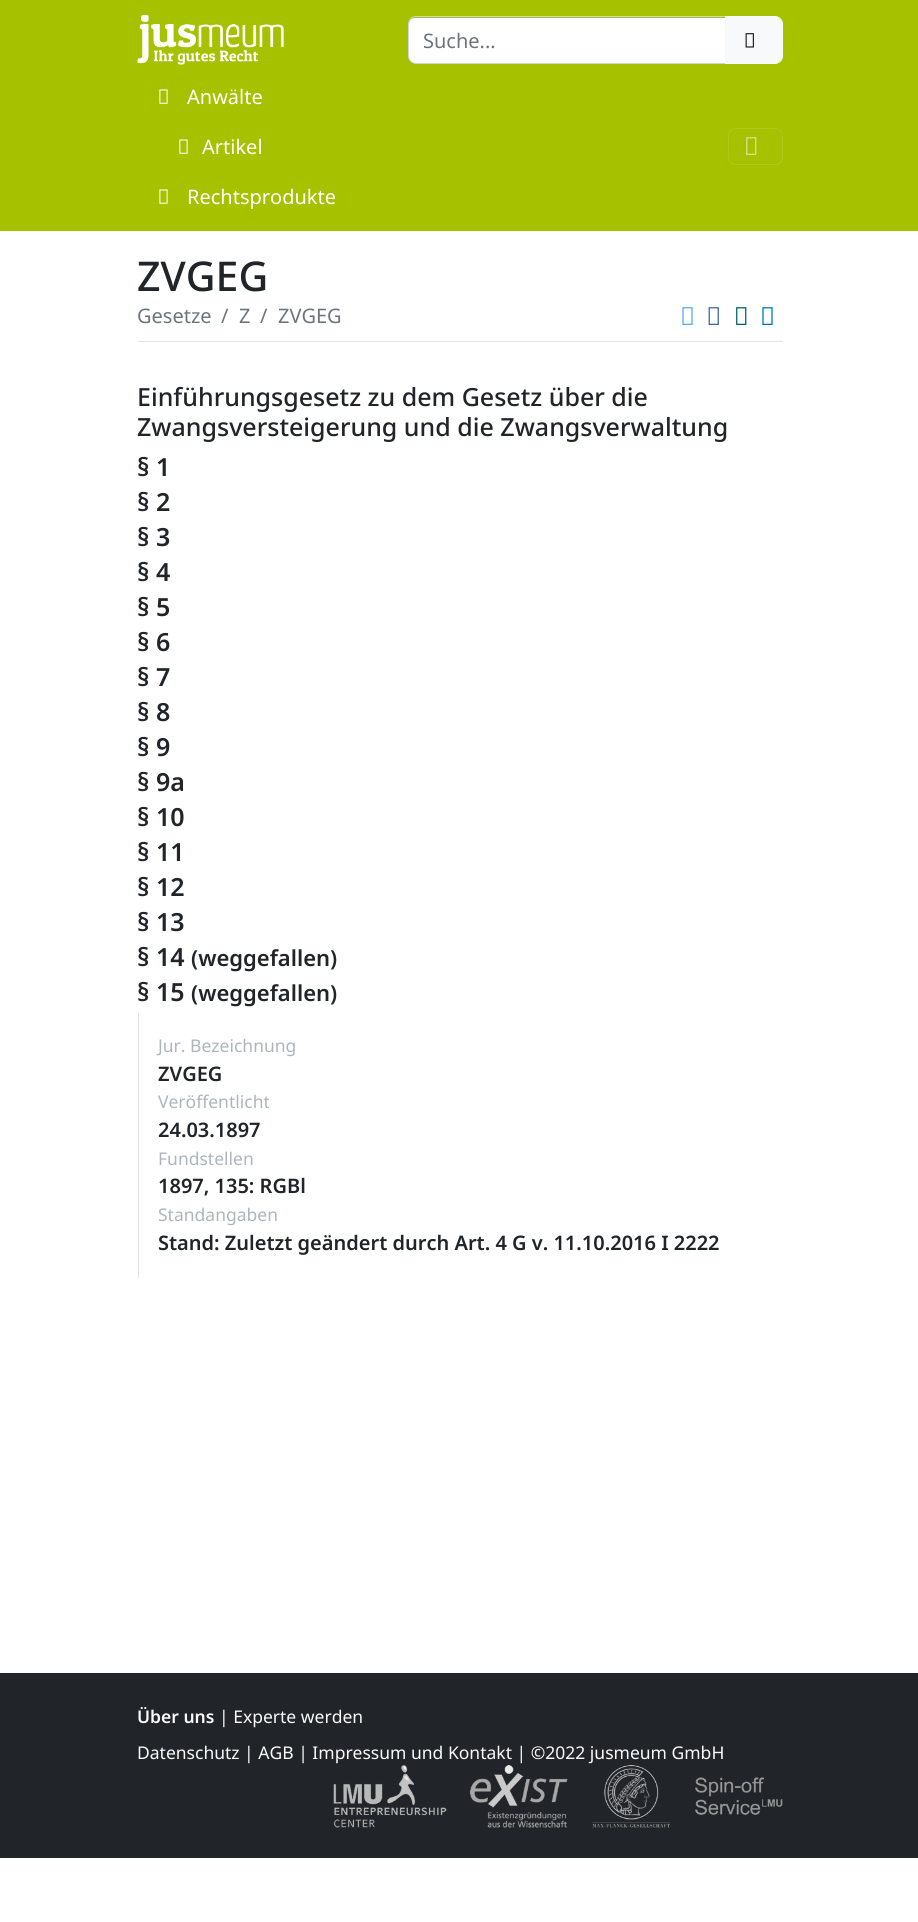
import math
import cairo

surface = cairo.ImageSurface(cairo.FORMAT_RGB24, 918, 1922)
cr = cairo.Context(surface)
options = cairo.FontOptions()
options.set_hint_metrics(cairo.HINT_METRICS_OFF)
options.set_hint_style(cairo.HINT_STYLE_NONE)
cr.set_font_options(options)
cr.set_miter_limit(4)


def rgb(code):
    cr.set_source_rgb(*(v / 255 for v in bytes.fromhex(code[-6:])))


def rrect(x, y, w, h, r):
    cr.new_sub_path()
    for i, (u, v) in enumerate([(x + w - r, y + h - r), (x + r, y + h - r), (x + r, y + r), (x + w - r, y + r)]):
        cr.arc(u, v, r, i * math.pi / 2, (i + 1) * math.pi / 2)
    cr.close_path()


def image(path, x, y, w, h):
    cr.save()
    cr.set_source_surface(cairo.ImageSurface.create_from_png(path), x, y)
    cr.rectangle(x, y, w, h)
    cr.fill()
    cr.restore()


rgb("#ffffff")
cr.paint()
rgb("#a5c100")
cr.rectangle(0, 0, 918, 231)
cr.fill()
image("img/1.png", 137, 15, 147, 50)
rgb("#ffffff")
cr.new_path()
cr.move_to(415, 18)
cr.line_to(725, 18)
cr.line_to(725, 63)
cr.line_to(415, 63)
cr.curve_to(411.5, 63, 409, 60.5, 409, 57)
cr.line_to(409, 24)
cr.curve_to(409, 20.5, 411.5, 18, 415, 18)
cr.close_path()
cr.fill()
cr.new_path()
cr.move_to(416, 16.5)
cr.line_to(725.5, 16.5)
cr.line_to(725.5, 63.5)
cr.line_to(416, 63.5)
cr.curve_to(412, 63.5, 408.5, 60, 408.5, 56)
cr.line_to(408.5, 24)
cr.curve_to(408.5, 20, 412, 16.5, 416, 16.5)
cr.close_path()
rgb("#ced4da")
cr.set_line_width(1)
cr.stroke()
rgb("#f8f9fa")
cr.new_path()
cr.move_to(725.5, 16.5)
cr.line_to(775, 16.5)
cr.curve_to(779, 16.5, 782.5, 20, 782.5, 24)
cr.line_to(782.5, 56)
cr.curve_to(782.5, 60, 779, 63.5, 775, 63.5)
cr.line_to(725.5, 63.5)
cr.close_path()
cr.fill_preserve()
cr.stroke()
image("img/2.png", 745, 33, 9, 15)
image("img/3.png", 159, 89, 9, 15)
image("img/3.png", 179, 139, 9, 15)
image("img/3.png", 159, 189, 9, 15)
rrect(728.5, 128.5, 54, 36, 7.5)
rgb("#aec71a")
cr.stroke()
image("img/4.png", 746, 137, 11, 18)
rgb("#dee2e6")
cr.rectangle(138, 341, 645, 1)
cr.fill()
image("img/5.png", 682, 307, 11, 18)
image("img/6.png", 708, 307, 11, 18)
image("img/7.png", 736, 307, 11, 18)
image("img/8.png", 762, 307, 11, 18)
cr.rectangle(138, 1013, 1, 265)
cr.fill()
rgb("#212529")
cr.rectangle(0, 1673, 918, 185)
cr.fill()
image("img/9.png", 333, 1765, 114, 63)
image("img/10.png", 470, 1765, 98, 63)
image("img/11.png", 592, 1765, 78, 63)
image("img/12.png", 695, 1777, 88, 38)
cr.select_font_face("Noto Sans")
cr.set_font_size(20)
rgb("#6c757d")
cr.move_to(423, 48)
cr.show_text("Suche...")
rgb("#ffffff")
for x, y, s in [
    (187, 104, "Anwälte"),
    (202, 154, "Artikel"),
    (187, 204, "Rechtsprodukte"),
]:
    cr.move_to(x, y)
    cr.show_text(s)
cr.select_font_face("Noto Sans Medium")
cr.set_font_size(41)
rgb("#212529")
cr.move_to(137, 291)
cr.show_text("ZVGEG")
cr.select_font_face("Noto Sans")
cr.set_font_size(20)
rgb("#6c757d")
for x, y, s in [
    (137, 323, "Gesetze"),
    (221, 323, "/"),
    (239, 323, "Z"),
    (260, 323, "/"),
    (278, 323, "ZVGEG"),
]:
    cr.move_to(x, y)
    cr.show_text(s)
cr.select_font_face("Noto Sans Medium")
cr.set_font_size(25)
rgb("#212529")
cr.move_to(137, 406)
cr.show_text("Einführungsgesetz zu dem Gesetz über die")
cr.move_to(137, 436)
cr.show_text("Zwangsversteigerung und die Zwangsverwaltung")
cr.select_font_face("Noto Sans SemiBold")
for x, y, s in [
    (137, 476, "§ 1"),
    (137, 511, "§ 2"),
    (137, 546, "§ 3"),
    (137, 581, "§ 4"),
    (137, 616, "§ 5"),
    (137, 651, "§ 6"),
    (137, 686, "§ 7"),
    (137, 721, "§ 8"),
    (137, 756, "§ 9"),
    (137, 791, "§ 9a"),
    (137, 826, "§ 10"),
    (137, 861, "§ 11"),
    (137, 896, "§ 12"),
    (137, 931, "§ 13"),
    (137, 966, "§ 14"),
]:
    cr.move_to(x, y)
    cr.show_text(s)
cr.set_font_size(22)
cr.move_to(191, 966)
cr.show_text("(weggefallen)")
cr.set_font_size(25)
cr.move_to(137, 1001)
cr.show_text("§ 15")
cr.set_font_size(22)
cr.move_to(191, 1001)
cr.show_text("(weggefallen)")
cr.select_font_face("Noto Sans")
cr.set_font_size(17.5)
rgb("#adb5bd")
cr.move_to(158, 1052)
cr.show_text("Jur. Bezeichnung")
cr.select_font_face("Noto Sans SemiBold")
cr.set_font_size(20)
rgb("#212529")
cr.move_to(158, 1081)
cr.show_text("ZVGEG")
cr.select_font_face("Noto Sans")
cr.set_font_size(17.5)
rgb("#adb5bd")
cr.move_to(158, 1108)
cr.show_text("Veröffentlicht")
cr.select_font_face("Noto Sans SemiBold")
cr.set_font_size(20)
rgb("#212529")
cr.move_to(158, 1137)
cr.show_text("24.03.1897")
cr.select_font_face("Noto Sans")
cr.set_font_size(17.5)
rgb("#adb5bd")
cr.move_to(158, 1165)
cr.show_text("Fundstellen")
cr.select_font_face("Noto Sans SemiBold")
cr.set_font_size(20)
rgb("#212529")
cr.move_to(158, 1193)
cr.show_text("1897, 135: RGBl")
cr.select_font_face("Noto Sans")
cr.set_font_size(17.5)
rgb("#adb5bd")
cr.move_to(158, 1221)
cr.show_text("Standangaben")
cr.select_font_face("Noto Sans SemiBold")
cr.set_font_size(20)
rgb("#212529")
cr.move_to(158, 1250)
cr.show_text("Stand: Zuletzt geändert durch Art. 4 G v. 11.10.2016 I 2222")
cr.set_font_size(17.5)
rgb("#f8f9fa")
cr.move_to(137, 1723)
cr.show_text("Über uns")
cr.select_font_face("Noto Sans")
cr.move_to(219, 1723)
cr.show_text("| Experte werden")
cr.move_to(137, 1759)
cr.show_text("Datenschutz | AGB | Impressum und Kontakt | ©2022 jusmeum GmbH")
surface.write_to_png("page.png")
